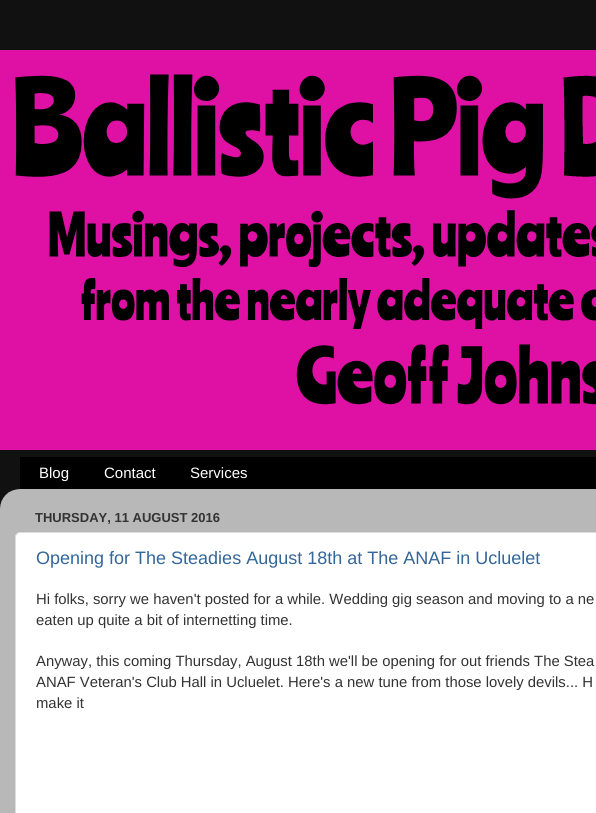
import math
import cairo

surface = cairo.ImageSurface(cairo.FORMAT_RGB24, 596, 813)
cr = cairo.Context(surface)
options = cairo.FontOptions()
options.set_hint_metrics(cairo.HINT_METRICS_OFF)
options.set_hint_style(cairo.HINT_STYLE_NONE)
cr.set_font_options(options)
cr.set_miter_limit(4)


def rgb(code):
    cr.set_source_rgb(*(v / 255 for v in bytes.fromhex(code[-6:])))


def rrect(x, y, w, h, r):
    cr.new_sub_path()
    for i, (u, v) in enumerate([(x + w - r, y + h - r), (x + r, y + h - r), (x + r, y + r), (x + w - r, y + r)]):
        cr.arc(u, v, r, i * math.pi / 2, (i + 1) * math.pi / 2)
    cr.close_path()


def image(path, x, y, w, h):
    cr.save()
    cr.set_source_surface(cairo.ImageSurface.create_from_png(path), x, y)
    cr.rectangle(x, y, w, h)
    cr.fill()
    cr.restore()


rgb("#111111")
cr.paint()
image("img/1.png", 0, 50, 596, 400)
rgb("#000000")
cr.rectangle(20, 457, 576, 32)
cr.fill()
image("img/2.png", 0, 489, 596, 324)
rgb("#ffffff")
rrect(15.5, 532.5, 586, 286, 4.5)
cr.fill_preserve()
rgb("#dddddd")
cr.set_line_width(1)
cr.stroke()
cr.select_font_face("Liberation Sans")
cr.set_font_size(15)
rgb("#ffffff")
for x, y, s in [
    (39, 478, "Blog"),
    (104, 478, "Contact"),
    (190, 478, "Services"),
]:
    cr.move_to(x, y)
    cr.show_text(s)
cr.select_font_face("Liberation Sans", cairo.FONT_SLANT_NORMAL, cairo.FONT_WEIGHT_BOLD)
cr.set_font_size(13)
rgb("#333333")
cr.move_to(35, 522)
cr.show_text("THURSDAY, 11 AUGUST 2016")
cr.select_font_face("Liberation Sans")
cr.set_font_size(18)
rgb("#336699")
cr.move_to(36, 564)
cr.show_text("Opening for The Steadies August 18th at The ANAF in Ucluelet")
cr.set_font_size(14.85)
rgb("#333333")
for x, y, s in [
    (36, 604, "Hi folks, sorry we haven't posted for a while. Wedding gig season and moving to a ne"),
    (36, 625, "eaten up quite a bit of internetting time."),
    (36, 666, "Anyway, this coming Thursday, August 18th we'll be opening for out friends The Stea"),
    (36, 687, "ANAF Veteran's Club Hall in Ucluelet. Here's a new tune from those lovely devils... H"),
    (36, 708, "make it"),
]:
    cr.move_to(x, y)
    cr.show_text(s)
surface.write_to_png("page.png")
